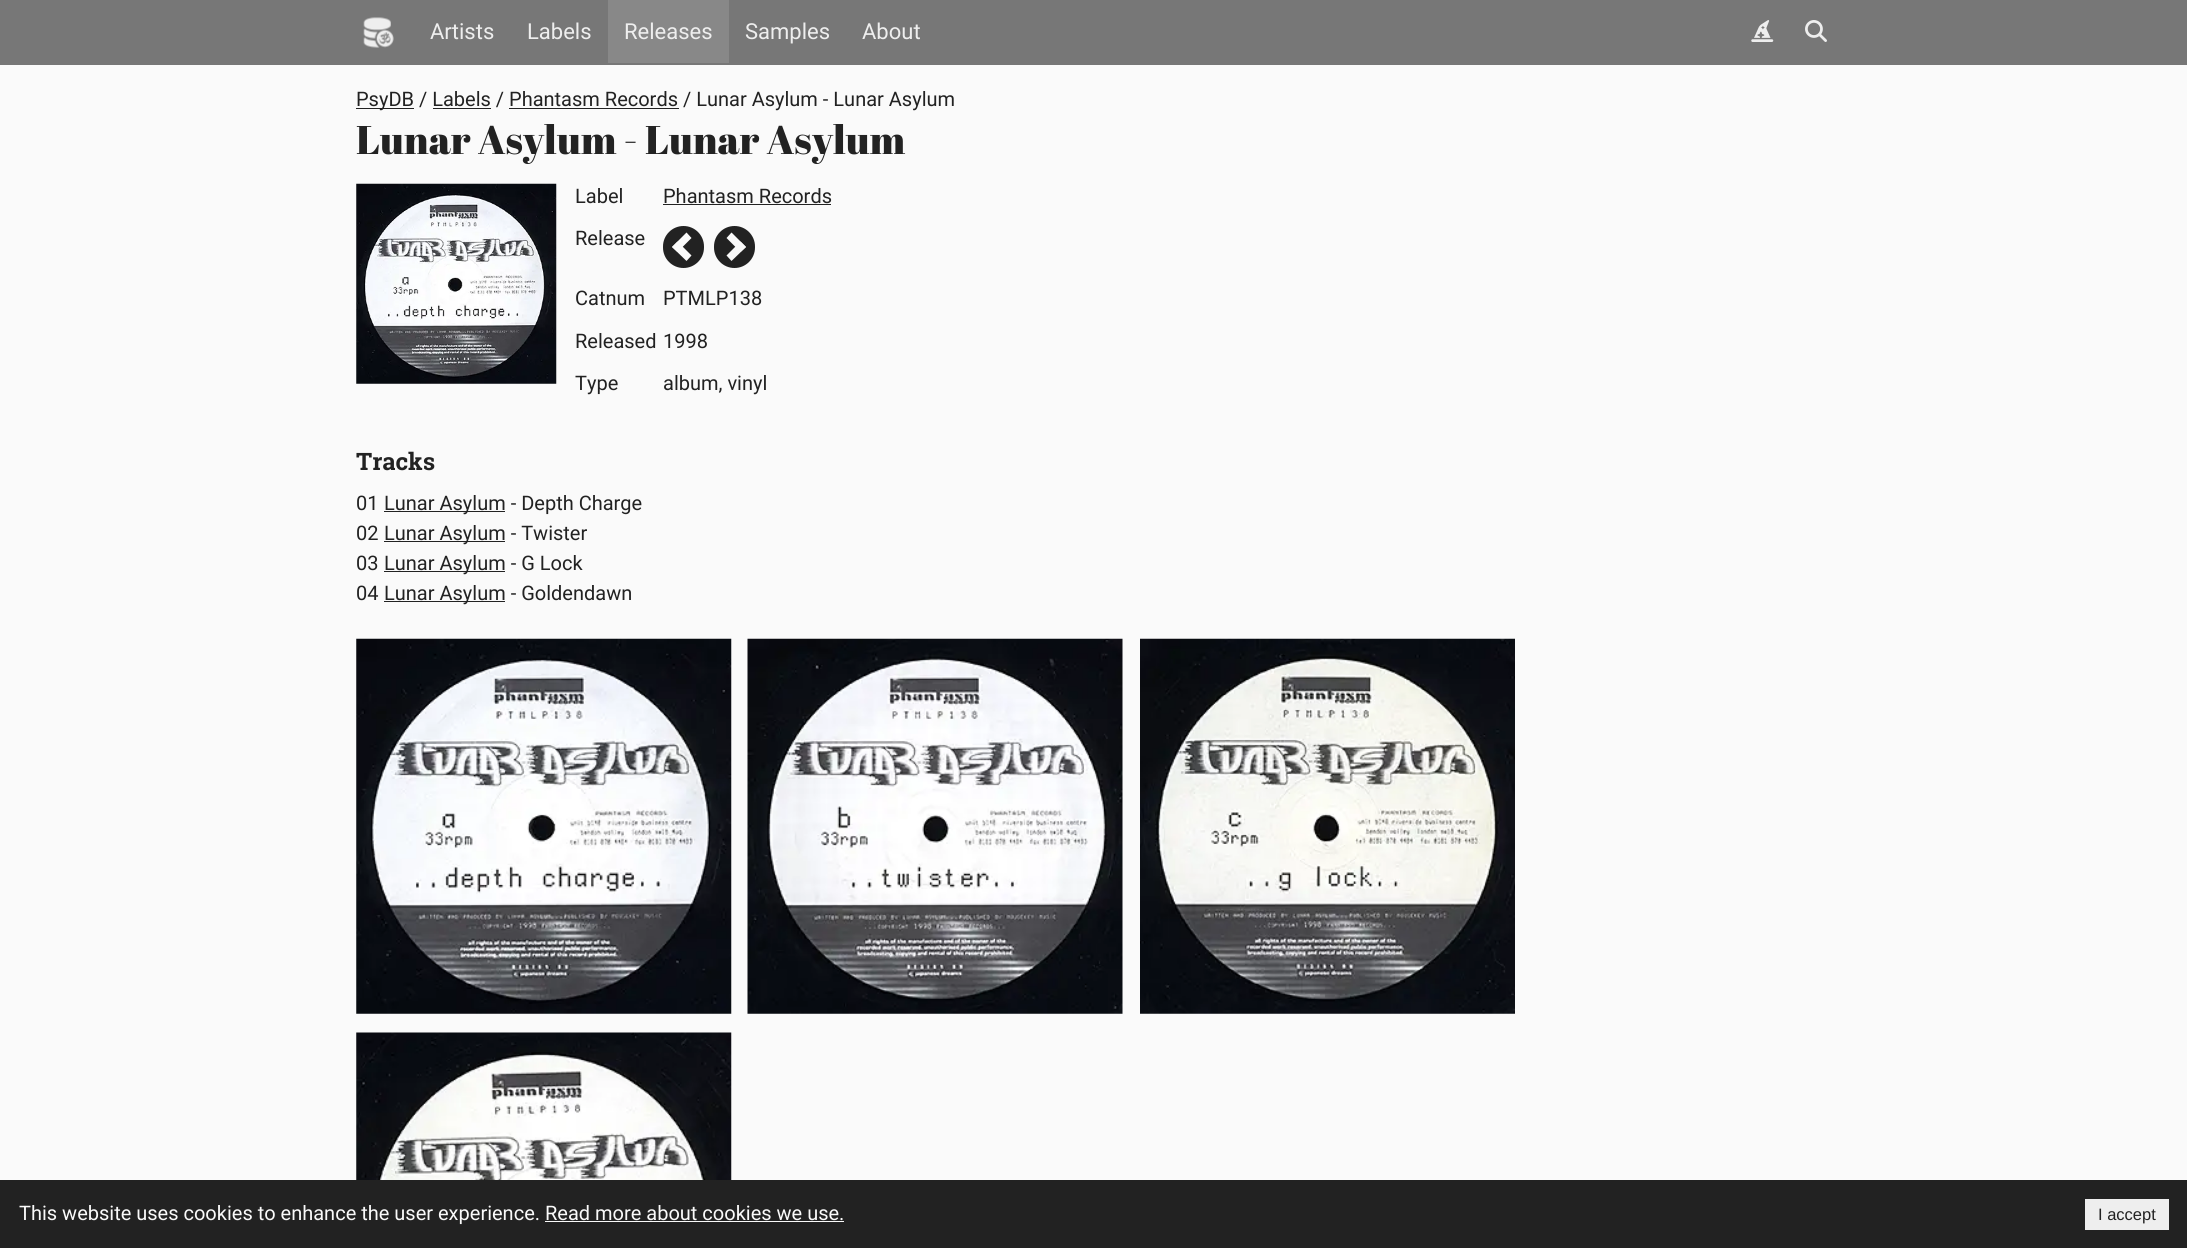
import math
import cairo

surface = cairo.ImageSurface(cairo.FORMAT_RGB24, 2187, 1248)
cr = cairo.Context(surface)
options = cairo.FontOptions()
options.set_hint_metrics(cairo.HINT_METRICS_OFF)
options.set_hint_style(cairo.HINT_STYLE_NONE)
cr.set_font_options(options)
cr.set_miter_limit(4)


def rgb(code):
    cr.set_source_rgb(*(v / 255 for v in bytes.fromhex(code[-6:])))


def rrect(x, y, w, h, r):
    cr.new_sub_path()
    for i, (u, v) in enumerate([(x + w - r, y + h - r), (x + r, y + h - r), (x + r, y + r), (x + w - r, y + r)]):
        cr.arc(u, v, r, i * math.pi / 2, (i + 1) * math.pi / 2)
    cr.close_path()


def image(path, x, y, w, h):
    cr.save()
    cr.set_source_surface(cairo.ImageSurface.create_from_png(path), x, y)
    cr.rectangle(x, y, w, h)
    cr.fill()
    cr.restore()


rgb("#fafafa")
cr.paint()
rgb("#777777")
cr.rectangle(0, 0, 2187, 65)
cr.fill()
image("img/1.png", 363, 17, 31, 31)
rgb("#888888")
cr.rectangle(608, 0, 121, 63)
cr.fill()
image("img/2.png", 1751, 20, 23, 22)
image("img/3.png", 1805, 20, 22, 22)
for x, y, w, h, color in [
    (356, 108, 58, 1, "#222222"),
    (433, 108, 58, 1, "#222222"),
    (509, 108, 170, 1, "#222222"),
]:
    rgb(color)
    cr.rectangle(x, y, w, h)
    cr.fill()
image("img/4.png", 356, 183, 201, 201)
cr.rectangle(663, 204, 168, 1)
cr.fill()
rrect(663, 226, 41, 42, 20.5)
cr.fill()
rgb("#fafafa")
cr.new_path()
cr.move_to(686.5, 261)
cr.line_to(672, 247)
cr.line_to(677.5, 241.5)
cr.line_to(691.5, 255.5)
cr.close_path()
cr.fill()
cr.new_path()
cr.move_to(677.5, 252)
cr.line_to(672, 247)
cr.line_to(686.5, 232.5)
cr.line_to(691.5, 238)
cr.close_path()
cr.fill()
rgb("#222222")
rrect(714, 226, 41, 42, 20.5)
cr.fill()
rgb("#fafafa")
cr.new_path()
cr.move_to(731.5, 232.5)
cr.line_to(746, 247)
cr.line_to(740.5, 252)
cr.line_to(726.5, 238)
cr.close_path()
cr.fill()
cr.new_path()
cr.move_to(740.5, 241.5)
cr.line_to(746, 247)
cr.line_to(731.5, 261)
cr.line_to(726.5, 255.5)
cr.close_path()
cr.fill()
for x, y, w, h, color in [
    (384, 511, 121, 1, "#222222"),
    (384, 541, 121, 1, "#222222"),
    (384, 571, 121, 1, "#222222"),
    (384, 601, 121, 1, "#222222"),
]:
    rgb(color)
    cr.rectangle(x, y, w, h)
    cr.fill()
image("img/5.png", 356, 638, 376, 376)
image("img/6.png", 356, 1032, 376, 148)
image("img/7.png", 747, 638, 376, 376)
image("img/8.png", 1140, 638, 375, 376)
for x, y, w, h, color in [
    (0, 1180, 2187, 68, "#222222"),
    (545, 1221, 299, 1, "#fafafa"),
    (2085, 1199, 84, 31, "#eeeeee"),
]:
    rgb(color)
    cr.rectangle(x, y, w, h)
    cr.fill()
cr.select_font_face("Roboto")
cr.set_font_size(22)
for x, y, s in [
    (430, 39, "Artists"),
    (527, 39, "Labels"),
    (624, 39, "Releases"),
    (745, 39, "Samples"),
    (862, 39, "About"),
]:
    cr.move_to(x, y)
    cr.show_text(s)
cr.set_font_size(20)
rgb("#222222")
cr.move_to(356, 106)
cr.show_text("PsyDB / Labels / Phantasm Records / Lunar Asylum - Lunar Asylum")
cr.select_font_face("Abril Fatface")
cr.set_font_size(40)
cr.move_to(356, 154)
cr.show_text("Lunar Asylum - Lunar Asylum")
cr.select_font_face("Roboto")
cr.set_font_size(20)
for x, y, s in [
    (575, 203, "Label"),
    (663, 203, "Phantasm Records"),
    (575, 245, "Release"),
    (575, 305, "Catnum"),
    (663, 305, "PTMLP138"),
    (575, 348, "Released"),
    (663, 348, "1998"),
    (575, 390, "Type"),
    (663, 390, "album, vinyl"),
]:
    cr.move_to(x, y)
    cr.show_text(s)
cr.select_font_face("Roboto Slab", cairo.FONT_SLANT_NORMAL, cairo.FONT_WEIGHT_BOLD)
cr.set_font_size(24)
cr.move_to(356, 470)
cr.show_text("Tracks")
cr.select_font_face("Roboto")
cr.set_font_size(20)
for x, y, s in [
    (356, 510, "01"),
    (384, 510, "Lunar Asylum - Depth Charge"),
    (356, 540, "02"),
    (384, 540, "Lunar Asylum - Twister"),
    (356, 570, "03"),
    (384, 570, "Lunar Asylum - G Lock"),
    (356, 600, "04"),
    (384, 600, "Lunar Asylum - Goldendawn"),
]:
    cr.move_to(x, y)
    cr.show_text(s)
rgb("#fafafa")
cr.move_to(19, 1220)
cr.show_text("This website uses cookies to enhance the user experience. Read more about cookies we use.")
cr.select_font_face("Liberation Sans")
cr.set_font_size(16.5)
rgb("#222222")
cr.move_to(2098, 1220)
cr.show_text("I accept")
surface.write_to_png("page.png")
